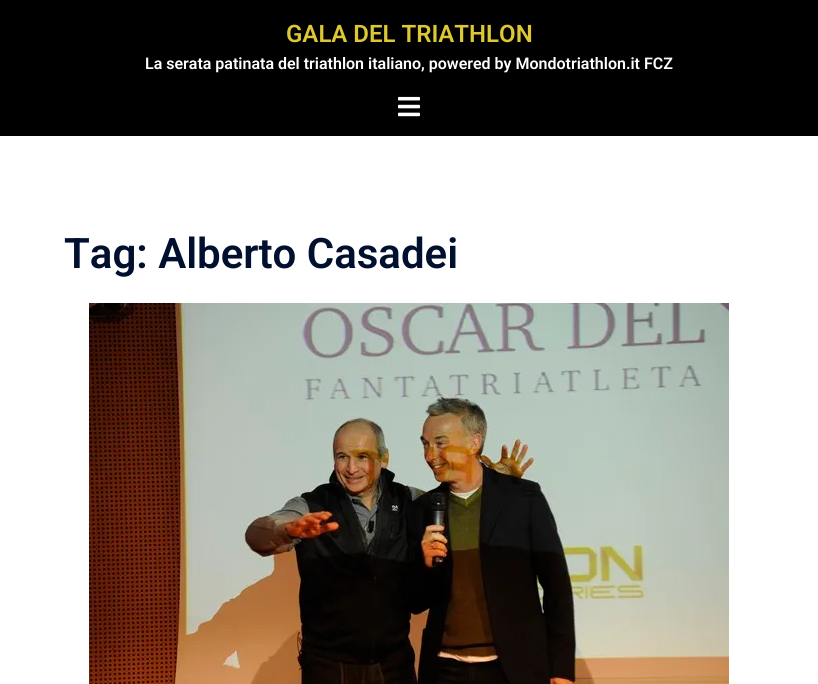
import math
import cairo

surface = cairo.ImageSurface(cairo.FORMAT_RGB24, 818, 684)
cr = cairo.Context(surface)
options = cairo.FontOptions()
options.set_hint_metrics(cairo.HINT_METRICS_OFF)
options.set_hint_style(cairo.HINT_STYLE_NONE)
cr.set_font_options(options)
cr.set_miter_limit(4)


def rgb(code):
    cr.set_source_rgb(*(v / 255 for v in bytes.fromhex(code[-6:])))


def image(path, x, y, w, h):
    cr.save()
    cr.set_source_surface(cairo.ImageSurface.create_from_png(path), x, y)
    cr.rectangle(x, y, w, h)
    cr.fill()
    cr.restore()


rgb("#ffffff")
cr.paint()
rgb("#000000")
cr.rectangle(0, 0, 818, 136)
cr.fill()
image("img/1.png", 398, 96, 22, 21)
image("img/2.png", 89, 303, 640, 381)
cr.select_font_face("Roboto SemiBold")
cr.set_font_size(24)
rgb("#ddc733")
cr.move_to(286, 42)
cr.show_text("GALA DEL TRIATHLON")
cr.set_font_size(16)
rgb("#ffffff")
cr.move_to(145, 69)
cr.show_text("La serata patinata del triathlon italiano, powered by Mondotriathlon.it FCZ")
cr.set_font_size(42)
rgb("#00102e")
cr.move_to(64, 268)
cr.show_text("Tag: Alberto Casadei")
surface.write_to_png("page.png")
